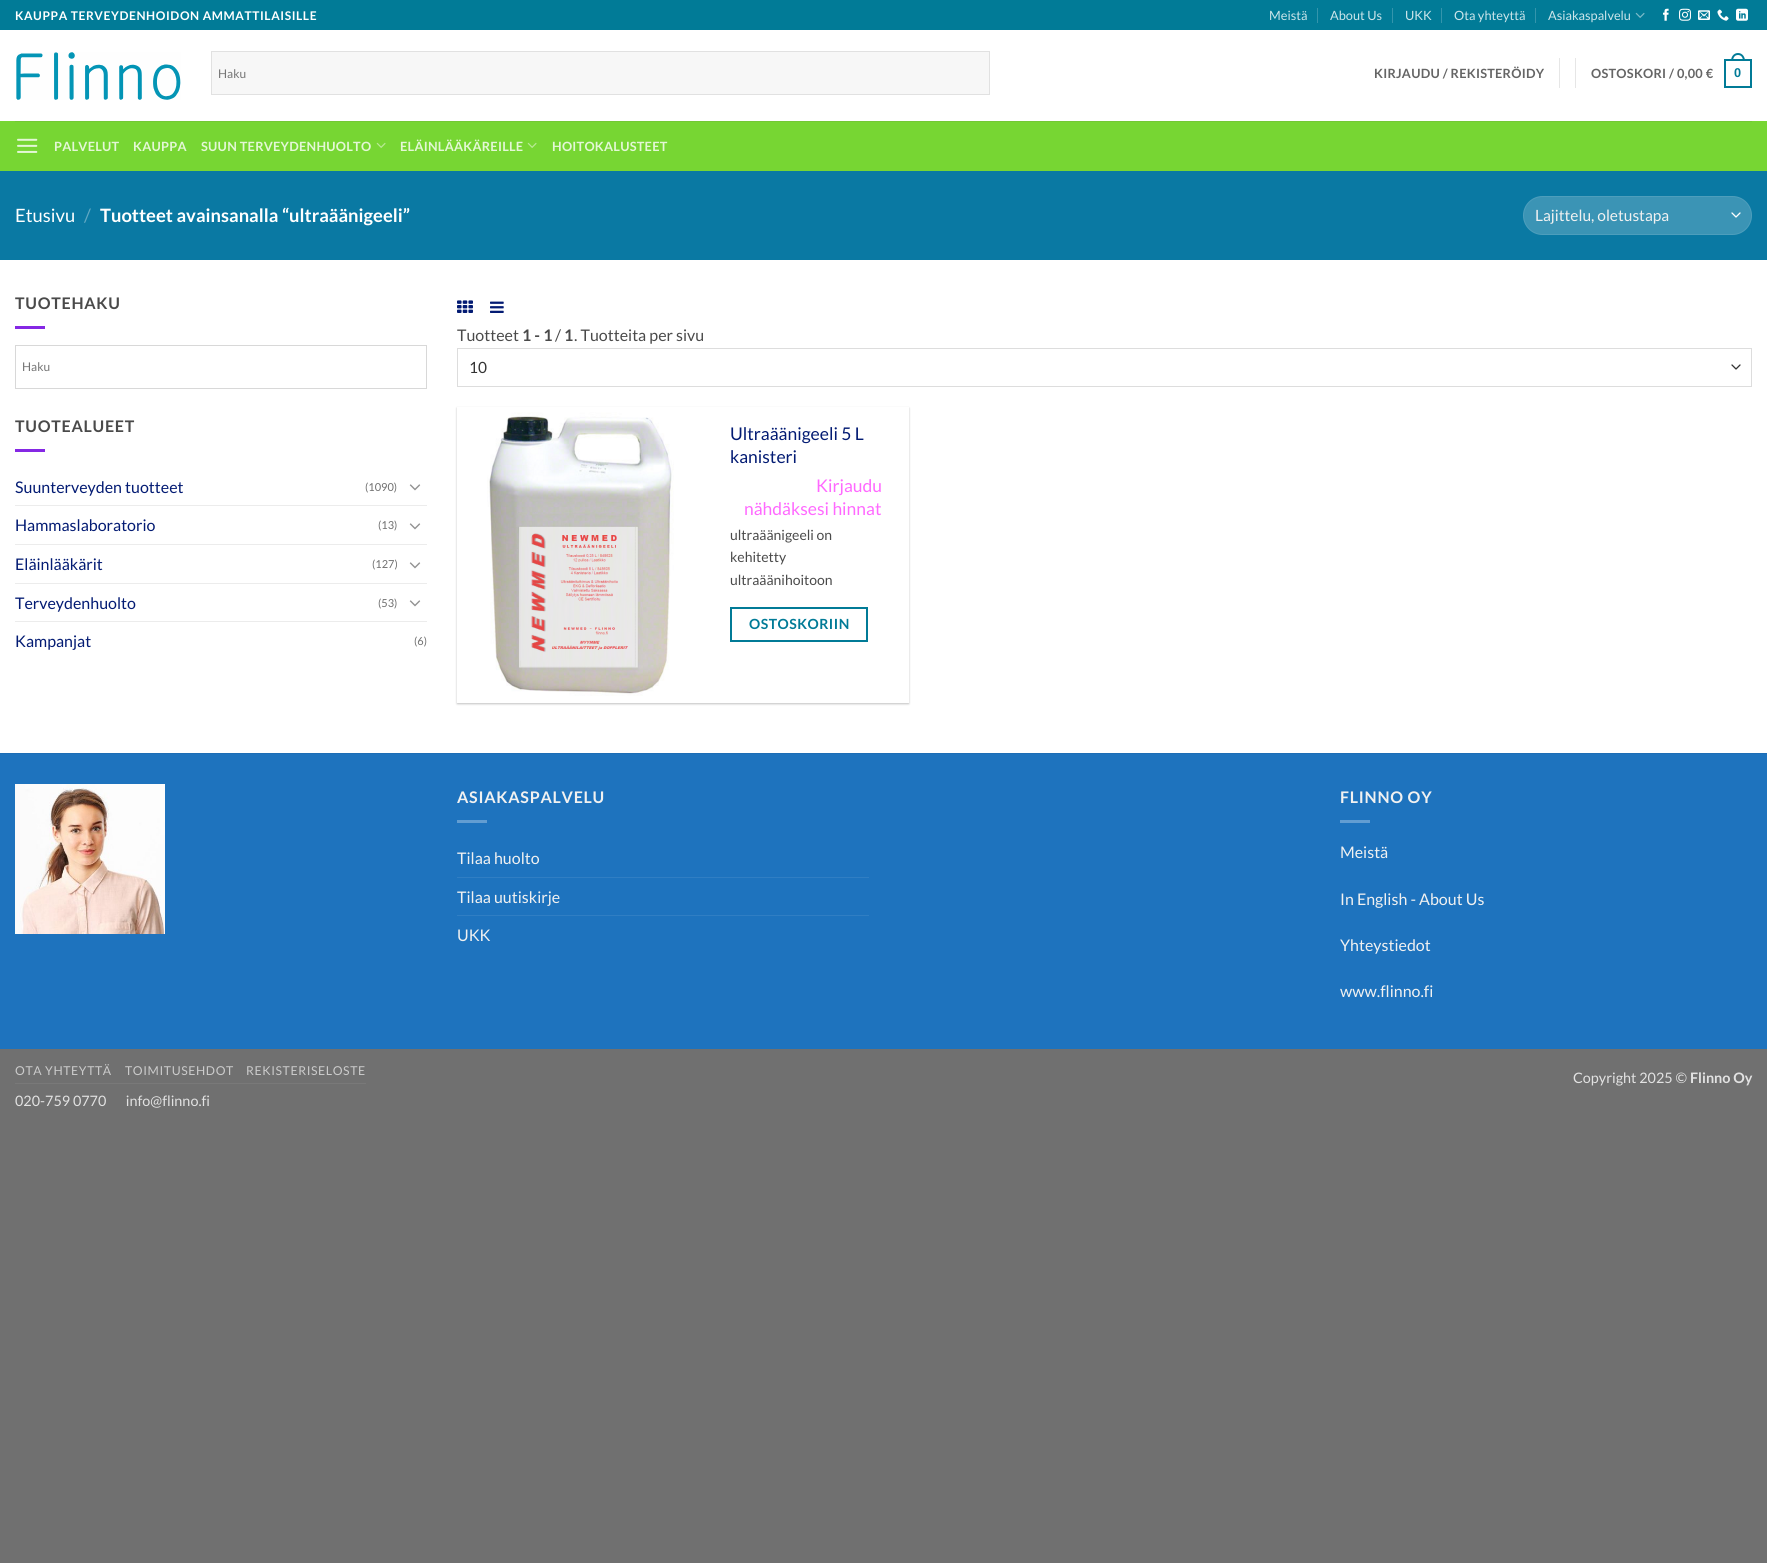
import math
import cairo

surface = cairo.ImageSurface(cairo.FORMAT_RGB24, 1767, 1563)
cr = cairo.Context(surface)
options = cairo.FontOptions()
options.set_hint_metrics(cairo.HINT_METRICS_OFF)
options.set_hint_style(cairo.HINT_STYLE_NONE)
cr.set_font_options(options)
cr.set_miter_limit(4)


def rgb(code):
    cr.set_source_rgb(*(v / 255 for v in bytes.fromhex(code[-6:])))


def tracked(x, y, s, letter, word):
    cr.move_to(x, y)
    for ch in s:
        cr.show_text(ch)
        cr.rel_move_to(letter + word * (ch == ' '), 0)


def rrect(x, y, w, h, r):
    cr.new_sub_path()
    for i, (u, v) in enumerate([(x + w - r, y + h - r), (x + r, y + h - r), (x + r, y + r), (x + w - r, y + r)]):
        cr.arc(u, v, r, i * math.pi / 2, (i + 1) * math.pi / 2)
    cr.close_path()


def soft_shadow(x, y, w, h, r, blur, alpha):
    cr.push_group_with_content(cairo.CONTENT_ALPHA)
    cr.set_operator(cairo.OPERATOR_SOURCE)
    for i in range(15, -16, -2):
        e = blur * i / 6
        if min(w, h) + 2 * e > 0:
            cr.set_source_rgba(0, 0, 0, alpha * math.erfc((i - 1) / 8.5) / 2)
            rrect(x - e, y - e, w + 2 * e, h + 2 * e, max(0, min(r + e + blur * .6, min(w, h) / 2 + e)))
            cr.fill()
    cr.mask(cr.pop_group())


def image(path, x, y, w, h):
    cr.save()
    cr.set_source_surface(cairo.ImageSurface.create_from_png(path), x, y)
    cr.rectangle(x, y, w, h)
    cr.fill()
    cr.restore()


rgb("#707070")
cr.paint()
for x, y, w, h, color in [
    (0, 30, 1767, 723, "#ffffff"),
    (0, 0, 1767, 30, "#017b97"),
    (1317, 8, 1, 15, "#3495ac"),
    (1392, 8, 1, 15, "#3495ac"),
    (1441, 8, 1, 15, "#3495ac"),
    (1535, 8, 1, 15, "#3495ac"),
]:
    rgb(color)
    cr.rectangle(x, y, w, h)
    cr.fill()
image("img/1.png", 1635, 12, 10, 6)
image("img/2.png", 1663, 8, 6, 13)
image("img/3.png", 1679, 8, 12, 13)
image("img/4.png", 1698, 10, 12, 10)
image("img/5.png", 1717, 9, 12, 12)
image("img/6.png", 1736, 8, 12, 13)
image("img/7.png", 16, 52, 165, 48)
rgb("#f7f7f7")
cr.rectangle(211.5, 51.5, 778, 43)
cr.fill_preserve()
rgb("#e1e1e1")
cr.set_line_width(1)
cr.stroke()
rgb("#e6e6e6")
cr.rectangle(1559, 58, 1, 30)
cr.fill()
cr.rectangle(1575, 58, 1, 30)
cr.fill()
cr.rectangle(1725, 60, 26, 27)
rgb("#017b97")
cr.set_line_width(2)
cr.stroke()
cr.set_fill_rule(cairo.FILL_RULE_EVEN_ODD)
cr.new_path()
cr.move_to(1738, 53)
cr.curve_to(1742.5, 53, 1745, 57, 1745, 61)
cr.line_to(1731, 61)
cr.curve_to(1731, 57, 1733.5, 53, 1738, 53)
cr.close_path()
cr.move_to(1738, 55)
cr.curve_to(1741.5, 55, 1743, 58, 1743, 61)
cr.line_to(1733, 61)
cr.curve_to(1733, 58, 1734.5, 55, 1738, 55)
cr.close_path()
cr.fill()
rgb("#77d633")
cr.rectangle(0, 121, 1767, 50)
cr.fill()
rgb("#73c835")
cr.rectangle(15, 121, 1737, 1)
cr.fill()
image("img/8.png", 17, 138, 21, 15)
image("img/9.png", 376, 142, 10, 6)
image("img/9.png", 527, 142, 10, 6)
rgb("#0a79a3")
cr.rectangle(0, 171, 1767, 89)
cr.fill()
rgb("#3b94b5")
rrect(1523, 196, 229, 39, 19.5)
cr.fill()
cr.new_path()
cr.move_to(1732, 213)
cr.line_to(1736, 217)
cr.line_to(1740, 213)
rgb("#ffffff")
cr.set_line_width(1.3)
cr.set_line_cap(cairo.LINE_CAP_ROUND)
cr.set_line_join(cairo.LINE_JOIN_ROUND)
cr.stroke()
rrect(1523.5, 196.5, 228, 38, 19)
cr.set_source_rgba(1, 1, 1, 0.09)
cr.set_line_width(1)
cr.set_line_cap(cairo.LINE_CAP_BUTT)
cr.set_line_join(cairo.LINE_JOIN_MITER)
cr.stroke()
rgb("#8528e4")
cr.rectangle(15, 326, 30, 3)
cr.fill()
cr.rectangle(15.5, 345.5, 411, 43)
rgb("#d8d8d8")
cr.stroke()
rgb("#8528e4")
cr.rectangle(15, 449, 30, 3)
cr.fill()
image("img/10.png", 409, 484, 12, 7)
rgb("#ececec")
cr.rectangle(15, 505, 412, 1)
cr.fill()
image("img/10.png", 409, 523, 12, 7)
cr.rectangle(15, 544, 412, 1)
cr.fill()
image("img/10.png", 409, 562, 12, 7)
cr.rectangle(15, 583, 412, 1)
cr.fill()
image("img/10.png", 409, 600, 12, 7)
cr.rectangle(15, 621, 412, 1)
cr.fill()
image("img/11.png", 457, 300, 16, 13)
image("img/12.png", 490, 301, 14, 12)
cr.new_path()
cr.move_to(1732, 365)
cr.line_to(1736, 369)
cr.line_to(1740, 365)
rgb("#333333")
cr.set_line_width(1.3)
cr.set_line_cap(cairo.LINE_CAP_ROUND)
cr.set_line_join(cairo.LINE_JOIN_ROUND)
cr.stroke()
cr.rectangle(457.5, 348.5, 1294, 38)
rgb("#dddddd")
cr.set_line_width(1)
cr.set_line_cap(cairo.LINE_CAP_BUTT)
cr.set_line_join(cairo.LINE_JOIN_MITER)
cr.stroke()
cr.save()
cr.new_path()
cr.move_to(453, 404)
cr.line_to(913, 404)
cr.line_to(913, 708)
cr.line_to(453, 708)
cr.close_path()
cr.move_to(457, 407)
cr.line_to(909, 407)
cr.line_to(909, 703)
cr.line_to(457, 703)
cr.close_path()
cr.clip()
rgb("#000000")
soft_shadow(457, 408, 452, 296, 0, 1, 0.24)
cr.restore()
image("img/13.png", 487, 412, 187, 284)
cr.rectangle(731, 608, 136, 33)
rgb("#017b97")
cr.set_line_width(2)
cr.stroke()
rgb("#1e73be")
cr.rectangle(0, 754, 1767, 295)
cr.fill()
rgb("#1d6db5")
cr.rectangle(0, 753, 1767, 1)
cr.fill()
image("img/14.png", 15, 784, 150, 150)
for x, y, w, h, color in [
    (457, 820, 30, 3, "#629dd2"),
    (457, 877, 412, 1, "#307ec3"),
    (457, 915, 412, 1, "#307ec3"),
    (1340, 820, 30, 3, "#629dd2"),
    (15, 1083, 351, 1, "#797979"),
]:
    rgb(color)
    cr.rectangle(x, y, w, h)
    cr.fill()
cr.select_font_face("Lato", cairo.FONT_SLANT_NORMAL, cairo.FONT_WEIGHT_BOLD)
cr.set_font_size(12)
rgb("#ffffff")
tracked(15, 20, "KAUPPA TERVEYDENHOIDON AMMATTILAISILLE", 0.6, 0)
cr.select_font_face("Lato")
cr.set_font_size(12.75)
rgb("#cce5ea")
for x, y, s in [
    (1269, 20, "Meistä"),
    (1330, 20, "About Us"),
    (1405, 20, "UKK"),
    (1454, 20, "Ota yhteyttä"),
    (1548, 20, "Asiakaspalvelu"),
]:
    cr.move_to(x, y)
    cr.show_text(s)
cr.set_font_size(12)
rgb("#757575")
cr.move_to(218, 78)
cr.show_text("Haku")
cr.select_font_face("Lato", cairo.FONT_SLANT_NORMAL, cairo.FONT_WEIGHT_BOLD)
cr.set_font_size(12.75)
rgb("#656565")
tracked(1374, 78, "KIRJAUDU / REKISTERÖIDY", 0.25, 0)
tracked(1591, 78, "OSTOSKORI / 0,00 €", 0.25, 0)
cr.select_font_face("Liberation Sans", cairo.FONT_SLANT_NORMAL, cairo.FONT_WEIGHT_BOLD)
rgb("#017b97")
tracked(1734, 77, "0", 0.25, 0)
cr.select_font_face("Lato", cairo.FONT_SLANT_NORMAL, cairo.FONT_WEIGHT_BOLD)
rgb("#e4f7d6")
for x, y, s in [
    (54, 151, "PALVELUT"),
    (133, 151, "KAUPPA"),
    (201, 151, "SUUN TERVEYDENHUOLTO"),
    (400, 151, "ELÄINLÄÄKÄREILLE"),
    (552, 151, "HOITOKALUSTEET"),
]:
    tracked(x, y, s, 0.25, 0)
cr.select_font_face("Lato")
cr.set_font_size(18.4)
rgb("#ffffff")
cr.move_to(15, 222)
cr.show_text("Etusivu")
rgb("#60a8c3")
cr.move_to(84, 222)
cr.show_text("/")
cr.select_font_face("Lato", cairo.FONT_SLANT_NORMAL, cairo.FONT_WEIGHT_BOLD)
rgb("#ffffff")
cr.move_to(100, 222)
cr.show_text("Tuotteet avainsanalla “ultraäänigeeli”")
cr.select_font_face("Lato")
cr.set_font_size(15.5)
rgb("#f1f1f1")
cr.move_to(1535, 221)
cr.show_text("Lajittelu, oletustapa")
cr.select_font_face("Lato", cairo.FONT_SLANT_NORMAL, cairo.FONT_WEIGHT_BOLD)
cr.set_font_size(16)
rgb("#4a4a4a")
tracked(15, 309, "TUOTEHAKU", 0.75, 0)
cr.select_font_face("Lato")
cr.set_font_size(12)
rgb("#757575")
cr.move_to(22, 371)
cr.show_text("Haku")
cr.select_font_face("Lato", cairo.FONT_SLANT_NORMAL, cairo.FONT_WEIGHT_BOLD)
cr.set_font_size(16)
rgb("#4a4a4a")
tracked(15, 432, "TUOTEALUEET", 0.75, 0)
cr.select_font_face("Lato")
rgb("#031b73")
cr.move_to(15, 493)
cr.show_text("Suunterveyden tuotteet")
cr.set_font_size(11)
rgb("#6e6e6e")
cr.move_to(365, 491)
cr.show_text("(1090)")
cr.set_font_size(16)
rgb("#031b73")
cr.move_to(15, 531)
cr.show_text("Hammaslaboratorio")
cr.set_font_size(11)
rgb("#6e6e6e")
cr.move_to(378, 529)
cr.show_text("(13)")
cr.set_font_size(16)
rgb("#031b73")
cr.move_to(15, 570)
cr.show_text("Eläinlääkärit")
cr.set_font_size(11)
rgb("#6e6e6e")
cr.move_to(372, 568)
cr.show_text("(127)")
cr.set_font_size(16)
rgb("#031b73")
cr.move_to(15, 609)
cr.show_text("Terveydenhuolto")
cr.set_font_size(11)
rgb("#6e6e6e")
cr.move_to(378, 607)
cr.show_text("(53)")
cr.set_font_size(16)
rgb("#031b73")
cr.move_to(15, 647)
cr.show_text("Kampanjat")
cr.set_font_size(11)
rgb("#6e6e6e")
cr.move_to(414, 645)
cr.show_text("(6)")
cr.set_font_size(16)
rgb("#4a4a4a")
cr.move_to(457, 341)
cr.show_text("Tuotteet")
cr.select_font_face("Lato", cairo.FONT_SLANT_NORMAL, cairo.FONT_WEIGHT_BOLD)
cr.move_to(522, 341)
cr.show_text("1 - 1")
cr.select_font_face("Lato")
cr.move_to(555, 341)
cr.show_text("/")
cr.select_font_face("Lato", cairo.FONT_SLANT_NORMAL, cairo.FONT_WEIGHT_BOLD)
cr.move_to(564, 341)
cr.show_text("1")
cr.select_font_face("Lato")
cr.move_to(574, 341)
cr.show_text(". Tuotteita per sivu")
cr.set_font_size(15.5)
rgb("#333333")
cr.move_to(469, 373)
cr.show_text("10")
cr.set_font_size(17.5)
rgb("#031b73")
cr.move_to(730, 440)
cr.show_text("Ultraäänigeeli 5 L")
cr.move_to(730, 463)
cr.show_text("kanisteri")
rgb("#ff69ff")
cr.move_to(816, 492)
cr.show_text("Kirjaudu")
cr.move_to(744, 515)
cr.show_text("nähdäksesi hinnat")
cr.set_font_size(14)
rgb("#4a4a4a")
for x, y, s in [
    (730, 540, "ultraäänigeeli on"),
    (730, 562, "kehitetty"),
    (730, 585, "ultraäänihoitoon"),
]:
    cr.move_to(x, y)
    cr.show_text(s)
cr.select_font_face("Lato", cairo.FONT_SLANT_NORMAL, cairo.FONT_WEIGHT_BOLD)
rgb("#017b97")
tracked(749, 629, "OSTOSKORIIN", 0.5, 0)
cr.set_font_size(16)
rgb("#f1f1f1")
tracked(457, 803, "ASIAKASPALVELU", 0.75, 0)
cr.select_font_face("Lato")
for x, y, s in [
    (457, 864, "Tilaa huolto"),
    (457, 903, "Tilaa uutiskirje"),
    (457, 941, "UKK"),
]:
    cr.move_to(x, y)
    cr.show_text(s)
cr.select_font_face("Lato", cairo.FONT_SLANT_NORMAL, cairo.FONT_WEIGHT_BOLD)
tracked(1340, 803, "FLINNO OY", 0.75, 0)
cr.select_font_face("Lato")
for x, y, s in [
    (1340, 858, "Meistä"),
    (1340, 905, "In English - About Us"),
    (1340, 951, "Yhteystiedot"),
    (1340, 997, "www.flinno.fi"),
]:
    cr.move_to(x, y)
    cr.show_text(s)
cr.set_font_size(12.25)
rgb("#cbcbcb")
for x, y, s in [
    (15, 1075, "OTA YHTEYTTÄ"),
    (125, 1075, "TOIMITUSEHDOT"),
    (246, 1075, "REKISTERISELOSTE"),
]:
    tracked(x, y, s, 0.6, 0)
cr.set_font_size(14.4)
rgb("#e2e2e2")
cr.move_to(15, 1106)
cr.show_text("020-759 0770       info@flinno.fi")
cr.move_to(1573, 1083)
cr.show_text("Copyright 2025 ©")
cr.select_font_face("Lato", cairo.FONT_SLANT_NORMAL, cairo.FONT_WEIGHT_BOLD)
cr.move_to(1690, 1083)
cr.show_text("Flinno Oy")
surface.write_to_png("page.png")
